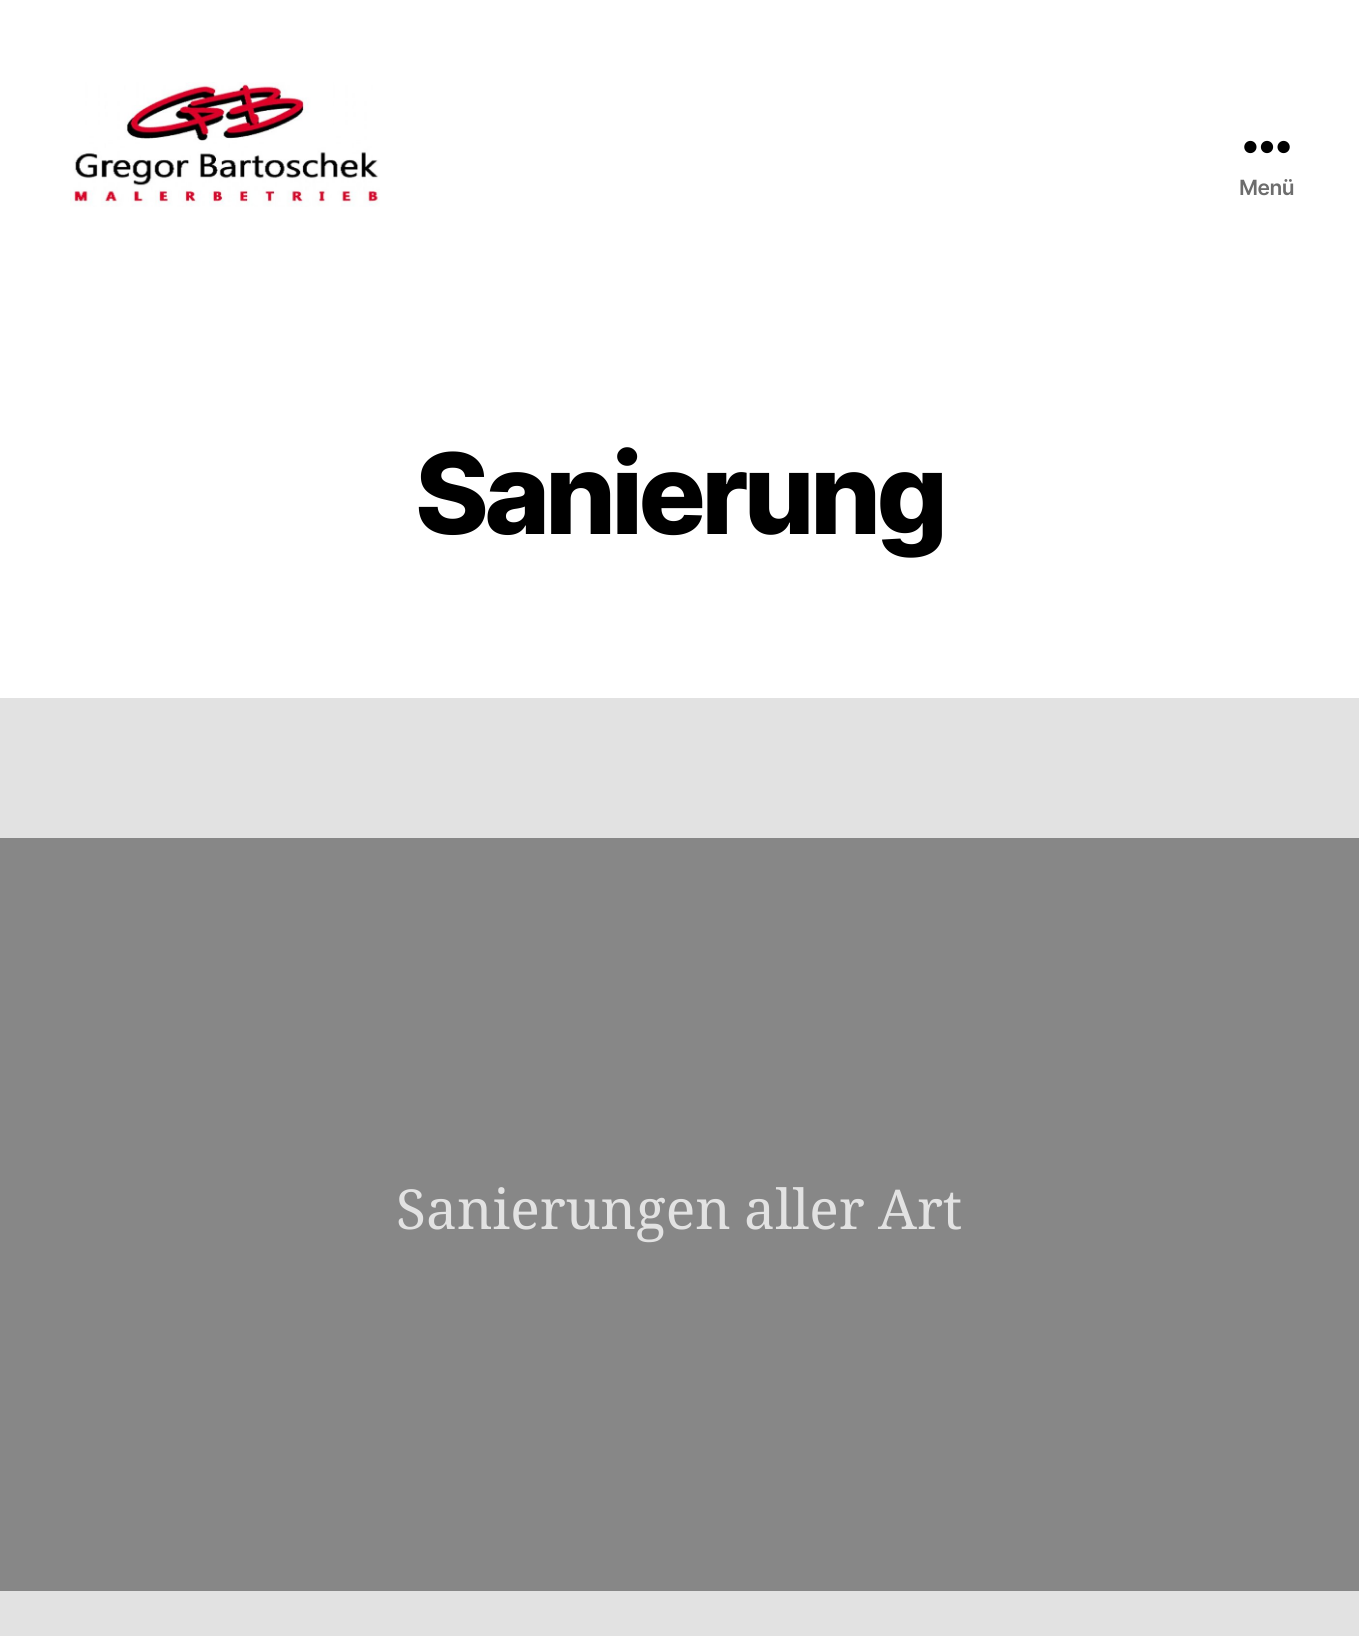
import math
import cairo

surface = cairo.ImageSurface(cairo.FORMAT_RGB24, 1359, 1636)
cr = cairo.Context(surface)
options = cairo.FontOptions()
options.set_hint_metrics(cairo.HINT_METRICS_OFF)
options.set_hint_style(cairo.HINT_STYLE_NONE)
cr.set_font_options(options)
cr.set_miter_limit(4)


def rgb(code):
    cr.set_source_rgb(*(v / 255 for v in bytes.fromhex(code[-6:])))


def tracked(x, y, s, letter, word):
    cr.move_to(x, y)
    for ch in s:
        cr.show_text(ch)
        cr.rel_move_to(letter + word * (ch == ' '), 0)


def image(path, x, y, w, h):
    cr.save()
    cr.set_source_surface(cairo.ImageSurface.create_from_png(path), x, y)
    cr.rectangle(x, y, w, h)
    cr.fill()
    cr.restore()


rgb("#e2e2e2")
cr.paint()
rgb("#ffffff")
cr.rectangle(0, 0, 1359, 698)
cr.fill()
image("img/1.png", 70, 82, 310, 125)
image("img/2.png", 1244, 140, 46, 14)
rgb("#878787")
cr.rectangle(0, 838, 1359, 753)
cr.fill()
cr.select_font_face("Inter SemiBold")
cr.set_font_size(21)
rgb("#6d6d6d")
tracked(1239, 195, "Menü", -0.5, 0)
cr.select_font_face("Inter ExtraBold")
cr.set_font_size(112)
rgb("#000000")
tracked(415, 534, "Sanierung", -4.75, 0)
cr.select_font_face("Noto Serif")
cr.set_font_size(55.1)
rgb("#e2e2e2")
tracked(396, 1229, "Sanierungen aller Art", 0, -1)
surface.write_to_png("page.png")
